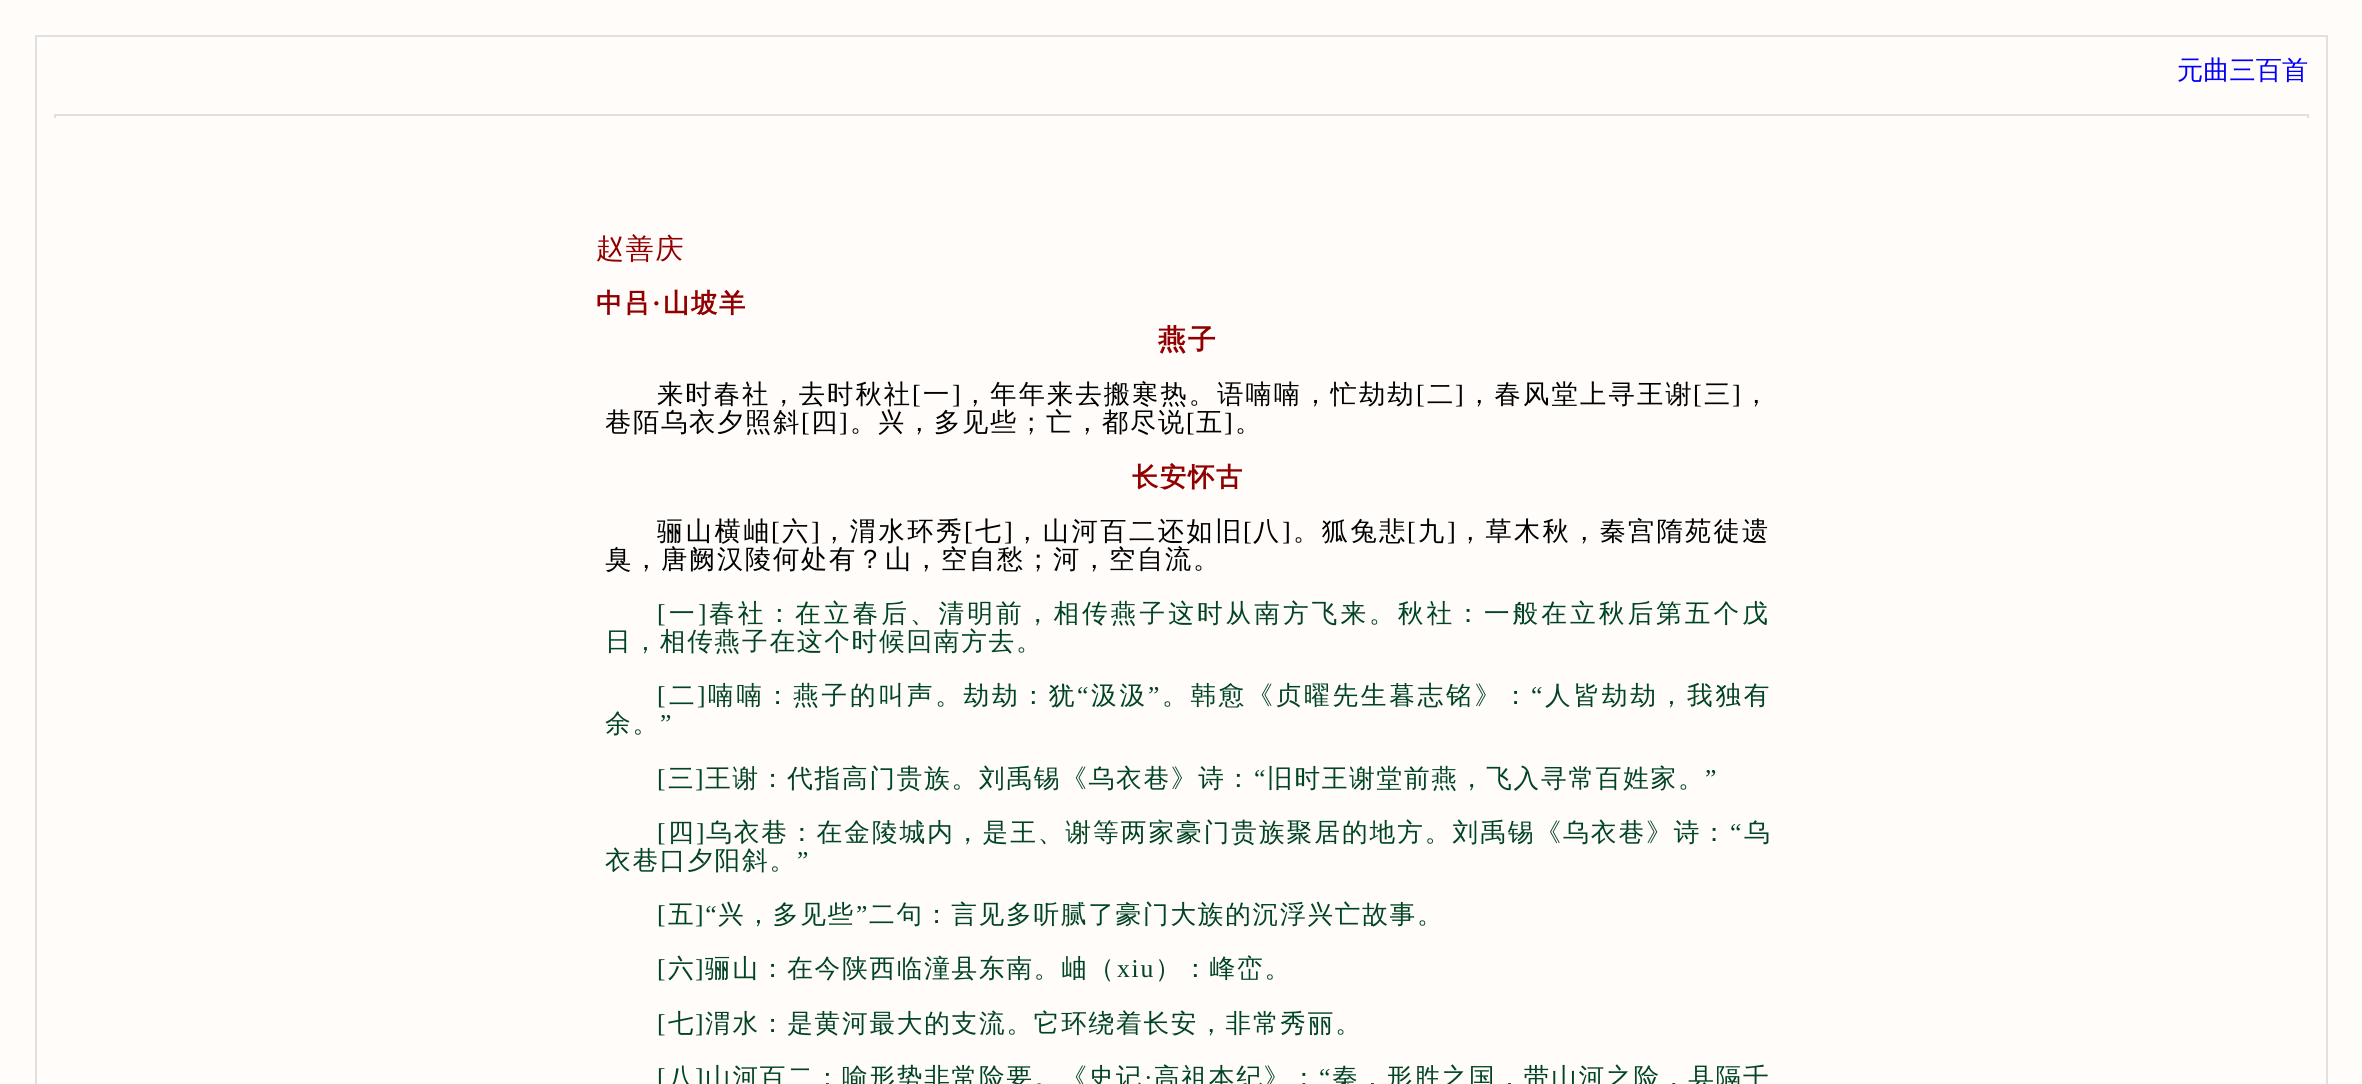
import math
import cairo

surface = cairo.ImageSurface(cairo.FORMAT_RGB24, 2362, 1084)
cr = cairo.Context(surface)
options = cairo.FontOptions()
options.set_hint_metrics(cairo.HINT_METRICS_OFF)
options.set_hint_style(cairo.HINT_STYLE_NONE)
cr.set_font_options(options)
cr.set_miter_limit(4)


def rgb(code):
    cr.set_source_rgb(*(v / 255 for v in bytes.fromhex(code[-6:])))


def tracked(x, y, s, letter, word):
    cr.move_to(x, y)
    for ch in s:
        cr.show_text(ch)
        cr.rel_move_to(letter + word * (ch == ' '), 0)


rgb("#fffcfa")
cr.paint()
cr.rectangle(36, 36, 2291, 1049)
rgb("#e0e0e0")
cr.stroke()
for x, y, w, h, color in [
    (54, 114, 2254, 2, "#e0e0e0"),
    (2307, 114, 2, 4, "#e0e0e0"),
    (54, 114, 2, 4, "#e0e0e0"),
]:
    rgb(color)
    cr.rectangle(x, y, w, h)
    cr.fill()
cr.select_font_face("WenQuanYi Zen Hei Medium")
cr.set_font_size(26.25)
rgb("#0000f9")
cr.move_to(2177, 79)
cr.show_text("元曲三百首")
cr.set_font_size(28)
rgb("#900000")
tracked(596, 258, "赵善庆", 1.75, 0)
cr.select_font_face("WenQuanYi Zen Hei", cairo.FONT_SLANT_NORMAL, cairo.FONT_WEIGHT_BOLD)
cr.set_font_size(26.25)
tracked(596, 312, "中吕", 1.75, 0)
cr.select_font_face("Liberation Serif", cairo.FONT_SLANT_NORMAL, cairo.FONT_WEIGHT_BOLD)
tracked(652, 312, "·", 1.75, 0)
cr.select_font_face("WenQuanYi Zen Hei", cairo.FONT_SLANT_NORMAL, cairo.FONT_WEIGHT_BOLD)
tracked(663, 312, "山坡羊", 1.75, 0)
cr.set_font_size(28)
tracked(1158, 349, "燕子", 1.75, 0)
cr.select_font_face("WenQuanYi Zen Hei Medium")
cr.set_font_size(26.25)
rgb("#000000")
tracked(657, 403, "来时春社，去时秋社", 2.1, 0)
cr.select_font_face("Liberation Serif")
tracked(912, 403, "[", 1.75, 0)
cr.select_font_face("WenQuanYi Zen Hei Medium")
tracked(923, 403, "一", 1.75, 0)
cr.select_font_face("Liberation Serif")
tracked(952, 403, "]", 1.75, 0)
cr.select_font_face("WenQuanYi Zen Hei Medium")
tracked(962, 403, "，年年来去搬寒热。语喃喃，忙劫劫", 2.1, 0)
cr.select_font_face("Liberation Serif")
tracked(1416, 403, "[", 1.75, 0)
cr.select_font_face("WenQuanYi Zen Hei Medium")
tracked(1427, 403, "二", 1.75, 0)
cr.select_font_face("Liberation Serif")
tracked(1455, 403, "]", 1.75, 0)
cr.select_font_face("WenQuanYi Zen Hei Medium")
tracked(1466, 403, "，春风堂上寻王谢", 2.25, 0)
cr.select_font_face("Liberation Serif")
tracked(1693, 403, "[", 1.75, 0)
cr.select_font_face("WenQuanYi Zen Hei Medium")
tracked(1704, 403, "三", 1.75, 0)
cr.select_font_face("Liberation Serif")
tracked(1732, 403, "]", 1.75, 0)
cr.select_font_face("WenQuanYi Zen Hei Medium")
tracked(1743, 403, "，", 1.75, 0)
tracked(605, 431, "巷陌乌衣夕照斜", 1.75, 0)
cr.select_font_face("Liberation Serif")
tracked(801, 431, "[", 1.75, 0)
cr.select_font_face("WenQuanYi Zen Hei Medium")
tracked(811, 431, "四", 1.75, 0)
cr.select_font_face("Liberation Serif")
tracked(839, 431, "]", 1.75, 0)
cr.select_font_face("WenQuanYi Zen Hei Medium")
tracked(850, 431, "。兴，多见些；亡，都尽说", 1.75, 0)
cr.select_font_face("Liberation Serif")
tracked(1186, 431, "[", 1.75, 0)
cr.select_font_face("WenQuanYi Zen Hei Medium")
tracked(1196, 431, "五", 1.75, 0)
cr.select_font_face("Liberation Serif")
tracked(1224, 431, "]", 1.75, 0)
cr.select_font_face("WenQuanYi Zen Hei Medium")
tracked(1235, 431, "。", 1.75, 0)
cr.select_font_face("WenQuanYi Zen Hei", cairo.FONT_SLANT_NORMAL, cairo.FONT_WEIGHT_BOLD)
rgb("#900000")
tracked(1132, 486, "长安怀古", 1.75, 0)
cr.select_font_face("WenQuanYi Zen Hei Medium")
rgb("#000000")
tracked(657, 540, "骊山横岫", 2.5, 0)
cr.select_font_face("Liberation Serif")
tracked(771, 540, "[", 1.75, 0)
cr.select_font_face("WenQuanYi Zen Hei Medium")
tracked(782, 540, "六", 1.75, 0)
cr.select_font_face("Liberation Serif")
tracked(811, 540, "]", 1.75, 0)
cr.select_font_face("WenQuanYi Zen Hei Medium")
tracked(821, 540, "，渭水环秀", 2.5, 0)
cr.select_font_face("Liberation Serif")
tracked(964, 540, "[", 1.75, 0)
cr.select_font_face("WenQuanYi Zen Hei Medium")
tracked(975, 540, "七", 1.75, 0)
cr.select_font_face("Liberation Serif")
tracked(1004, 540, "]", 1.75, 0)
cr.select_font_face("WenQuanYi Zen Hei Medium")
tracked(1014, 540, "，山河百二还如旧", 2.5, 0)
cr.select_font_face("Liberation Serif")
tracked(1243, 540, "[", 1.75, 0)
cr.select_font_face("WenQuanYi Zen Hei Medium")
tracked(1253, 540, "八", 1.75, 0)
cr.select_font_face("Liberation Serif")
tracked(1282, 540, "]", 1.75, 0)
cr.select_font_face("WenQuanYi Zen Hei Medium")
tracked(1293, 540, "。狐兔悲", 2.5, 0)
cr.select_font_face("Liberation Serif")
tracked(1407, 540, "[", 1.75, 0)
cr.select_font_face("WenQuanYi Zen Hei Medium")
tracked(1418, 540, "九", 1.75, 0)
cr.select_font_face("Liberation Serif")
tracked(1447, 540, "]", 1.75, 0)
cr.select_font_face("WenQuanYi Zen Hei Medium")
tracked(1457, 540, "，草木秋，秦宫隋苑徒遗", 2.25, 0)
tracked(605, 568, "臭，唐阙汉陵何处有？山，空自愁；河，空自流。", 1.75, 0)
cr.select_font_face("Liberation Serif")
cr.set_font_size(25.65)
rgb("#004422")
tracked(657, 622, "[", 3.05, 0)
cr.select_font_face("WenQuanYi Zen Hei Medium")
tracked(669, 622, "一", 3.05, 0)
cr.select_font_face("Liberation Serif")
tracked(698, 622, "]", 3.05, 0)
cr.select_font_face("WenQuanYi Zen Hei Medium")
tracked(709, 622, "春社：在立春后、清明前，相传燕子这时从南方飞来。秋社：一般在立秋后第五个戊", 3.05, 0)
tracked(605, 650, "日，相传燕子在这个时候回南方去。", 1.75, 0)
cr.select_font_face("Liberation Serif")
tracked(657, 704, "[", 2.75, 0)
cr.select_font_face("WenQuanYi Zen Hei Medium")
tracked(669, 704, "二", 2.75, 0)
cr.select_font_face("Liberation Serif")
tracked(697, 704, "]", 2.75, 0)
cr.select_font_face("WenQuanYi Zen Hei Medium")
tracked(708, 704, "喃喃：燕子的叫声。劫劫：犹", 2.75, 0)
cr.select_font_face("Liberation Serif")
tracked(1077, 704, "“", 2.75, 0)
cr.select_font_face("WenQuanYi Zen Hei Medium")
tracked(1091, 704, "汲汲", 2.75, 0)
cr.select_font_face("Liberation Serif")
tracked(1148, 704, "”", 2.75, 0)
cr.select_font_face("WenQuanYi Zen Hei Medium")
tracked(1162, 704, "。韩愈《贞曜先生暮志铭》：", 2.75, 0)
cr.select_font_face("Liberation Serif")
tracked(1531, 704, "“", 2.75, 0)
cr.select_font_face("WenQuanYi Zen Hei Medium")
tracked(1545, 704, "人皆劫劫，我独有", 2.75, 0)
tracked(605, 732, "余。", 1.75, 0)
cr.select_font_face("Liberation Serif")
tracked(660, 732, "”", 1.75, 0)
tracked(657, 787, "[", 1.75, 0)
cr.select_font_face("WenQuanYi Zen Hei Medium")
tracked(668, 787, "三", 1.75, 0)
cr.select_font_face("Liberation Serif")
tracked(695, 787, "]", 1.75, 0)
cr.select_font_face("WenQuanYi Zen Hei Medium")
tracked(705, 787, "王谢：代指高门贵族。刘禹锡《乌衣巷》诗：", 1.75, 0)
cr.select_font_face("Liberation Serif")
tracked(1254, 787, "“", 1.75, 0)
cr.select_font_face("WenQuanYi Zen Hei Medium")
tracked(1267, 787, "旧时王谢堂前燕，飞入寻常百姓家。", 1.75, 0)
cr.select_font_face("Liberation Serif")
tracked(1705, 787, "”", 1.75, 0)
tracked(657, 841, "[", 2, 0)
cr.select_font_face("WenQuanYi Zen Hei Medium")
tracked(668, 841, "四", 2, 0)
cr.select_font_face("Liberation Serif")
tracked(696, 841, "]", 2, 0)
cr.select_font_face("WenQuanYi Zen Hei Medium")
tracked(706, 841, "乌衣巷：在金陵城内，是王、谢等两家豪门贵族聚居的地方。刘禹锡《乌衣巷》诗：", 2, 0)
cr.select_font_face("Liberation Serif")
tracked(1730, 841, "“", 2, 0)
cr.select_font_face("WenQuanYi Zen Hei Medium")
tracked(1744, 841, "乌", 2, 0)
tracked(605, 869, "衣巷口夕阳斜。", 1.75, 0)
cr.select_font_face("Liberation Serif")
tracked(797, 869, "”", 1.75, 0)
tracked(657, 923, "[", 1.75, 0)
cr.select_font_face("WenQuanYi Zen Hei Medium")
tracked(668, 923, "五", 1.75, 0)
cr.select_font_face("Liberation Serif")
tracked(695, 923, "]“", 1.75, 0)
cr.select_font_face("WenQuanYi Zen Hei Medium")
tracked(718, 923, "兴，多见些", 1.75, 0)
cr.select_font_face("Liberation Serif")
tracked(856, 923, "”", 1.75, 0)
cr.select_font_face("WenQuanYi Zen Hei Medium")
tracked(869, 923, "二句：言见多听腻了豪门大族的沉浮兴亡故事。", 1.75, 0)
cr.select_font_face("Liberation Serif")
tracked(657, 977, "[", 1.75, 0)
cr.select_font_face("WenQuanYi Zen Hei Medium")
tracked(668, 977, "六", 1.75, 0)
cr.select_font_face("Liberation Serif")
tracked(695, 977, "]", 1.75, 0)
cr.select_font_face("WenQuanYi Zen Hei Medium")
tracked(705, 977, "骊山：在今陕西临潼县东南。岫（", 1.75, 0)
cr.select_font_face("Liberation Serif")
tracked(1117, 977, "xiu", 1.75, 0)
cr.select_font_face("WenQuanYi Zen Hei Medium")
tracked(1155, 977, "）：峰峦。", 1.75, 0)
cr.select_font_face("Liberation Serif")
tracked(657, 1032, "[", 1.75, 0)
cr.select_font_face("WenQuanYi Zen Hei Medium")
tracked(668, 1032, "七", 1.75, 0)
cr.select_font_face("Liberation Serif")
tracked(695, 1032, "]", 1.75, 0)
cr.select_font_face("WenQuanYi Zen Hei Medium")
tracked(705, 1032, "渭水：是黄河最大的支流。它环绕着长安，非常秀丽。", 1.75, 0)
cr.select_font_face("Liberation Serif")
tracked(657, 1086, "[", 1.75, 0)
cr.select_font_face("WenQuanYi Zen Hei Medium")
tracked(668, 1086, "八", 1.75, 0)
cr.select_font_face("Liberation Serif")
tracked(695, 1086, "]", 1.75, 0)
cr.select_font_face("WenQuanYi Zen Hei Medium")
tracked(705, 1086, "山河百二：喻形势非常险要。《史记", 1.75, 0)
tracked(1154, 1086, "高祖本纪》：", 1.75, 0)
cr.select_font_face("Liberation Serif")
tracked(1319, 1086, "“", 1.75, 0)
cr.select_font_face("WenQuanYi Zen Hei Medium")
tracked(1332, 1086, "秦，形胜之国，带山河之险，县隔千", 1.75, 0)
cr.select_font_face("Liberation Serif")
tracked(1144, 1086, "·", 1.75, 0)
surface.write_to_png("page.png")
